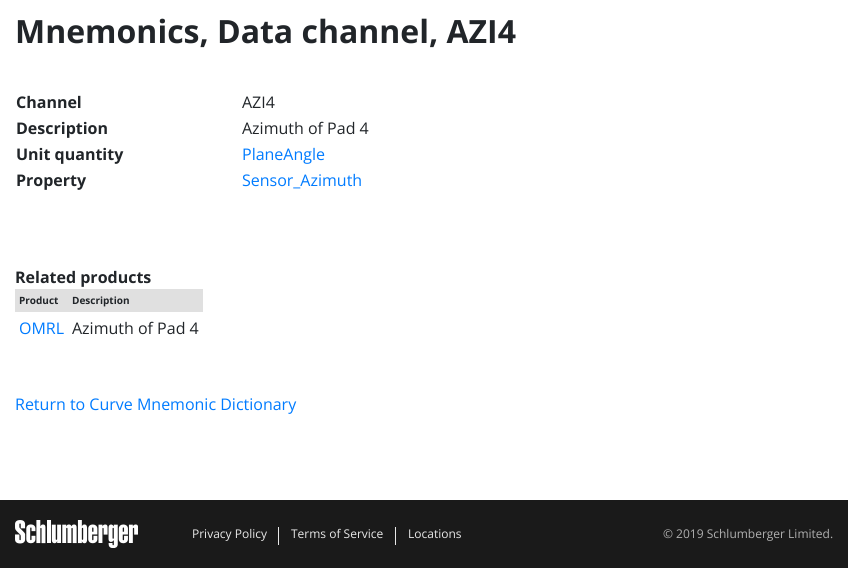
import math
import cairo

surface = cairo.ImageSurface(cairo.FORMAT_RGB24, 848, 568)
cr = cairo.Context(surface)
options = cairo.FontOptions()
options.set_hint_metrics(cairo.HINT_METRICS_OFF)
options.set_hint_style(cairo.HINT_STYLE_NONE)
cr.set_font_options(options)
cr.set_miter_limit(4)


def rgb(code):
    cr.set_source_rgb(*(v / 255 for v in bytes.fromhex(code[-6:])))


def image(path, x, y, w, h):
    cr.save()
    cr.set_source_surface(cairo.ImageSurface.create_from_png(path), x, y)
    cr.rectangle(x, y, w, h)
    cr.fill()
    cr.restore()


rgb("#1a1a1a")
cr.paint()
rgb("#ffffff")
cr.rectangle(0, 0, 848, 500)
cr.fill()
rgb("#e0e0e0")
cr.rectangle(15, 289, 188, 23)
cr.fill()
image("img/1.png", 15, 520, 123, 28)
rgb("#e8e8e8")
cr.rectangle(278, 527, 1, 18)
cr.fill()
cr.rectangle(395, 527, 1, 18)
cr.fill()
cr.select_font_face("Open Sans", cairo.FONT_SLANT_NORMAL, cairo.FONT_WEIGHT_BOLD)
cr.set_font_size(32)
rgb("#212529")
cr.move_to(15, 43)
cr.show_text("Mnemonics, Data channel, AZI4")
cr.set_font_size(16)
cr.move_to(16, 108)
cr.show_text("Channel")
cr.select_font_face("Open Sans")
cr.move_to(242, 108)
cr.show_text("AZI4")
cr.select_font_face("Open Sans", cairo.FONT_SLANT_NORMAL, cairo.FONT_WEIGHT_BOLD)
cr.move_to(16, 134)
cr.show_text("Description")
cr.select_font_face("Open Sans")
cr.move_to(242, 134)
cr.show_text("Azimuth of Pad 4")
cr.select_font_face("Open Sans", cairo.FONT_SLANT_NORMAL, cairo.FONT_WEIGHT_BOLD)
cr.move_to(16, 160)
cr.show_text("Unit quantity")
cr.select_font_face("Open Sans")
rgb("#007bff")
cr.move_to(242, 160)
cr.show_text("PlaneAngle")
cr.select_font_face("Open Sans", cairo.FONT_SLANT_NORMAL, cairo.FONT_WEIGHT_BOLD)
rgb("#212529")
cr.move_to(16, 186)
cr.show_text("Property")
cr.select_font_face("Open Sans")
rgb("#007bff")
cr.move_to(242, 186)
cr.show_text("Sensor_Azimuth")
cr.select_font_face("Open Sans", cairo.FONT_SLANT_NORMAL, cairo.FONT_WEIGHT_BOLD)
rgb("#212529")
cr.move_to(15, 283)
cr.show_text("Related products")
cr.set_font_size(10)
cr.move_to(19, 304)
cr.show_text("Product")
cr.move_to(72, 304)
cr.show_text("Description")
cr.select_font_face("Open Sans")
cr.set_font_size(16)
rgb("#007bff")
cr.move_to(19, 334)
cr.show_text("OMRL")
rgb("#212529")
cr.move_to(72, 334)
cr.show_text("Azimuth of Pad 4")
rgb("#007bff")
cr.move_to(15, 410)
cr.show_text("Return to Curve Mnemonic Dictionary")
cr.set_font_size(12)
rgb("#e8e8e8")
for x, y, s in [
    (192, 538, "Privacy Policy"),
    (291, 538, "Terms of Service"),
    (408, 538, "Locations"),
]:
    cr.move_to(x, y)
    cr.show_text(s)
rgb("#afafaf")
cr.move_to(663, 538)
cr.show_text("© 2019 Schlumberger Limited.")
surface.write_to_png("page.png")
